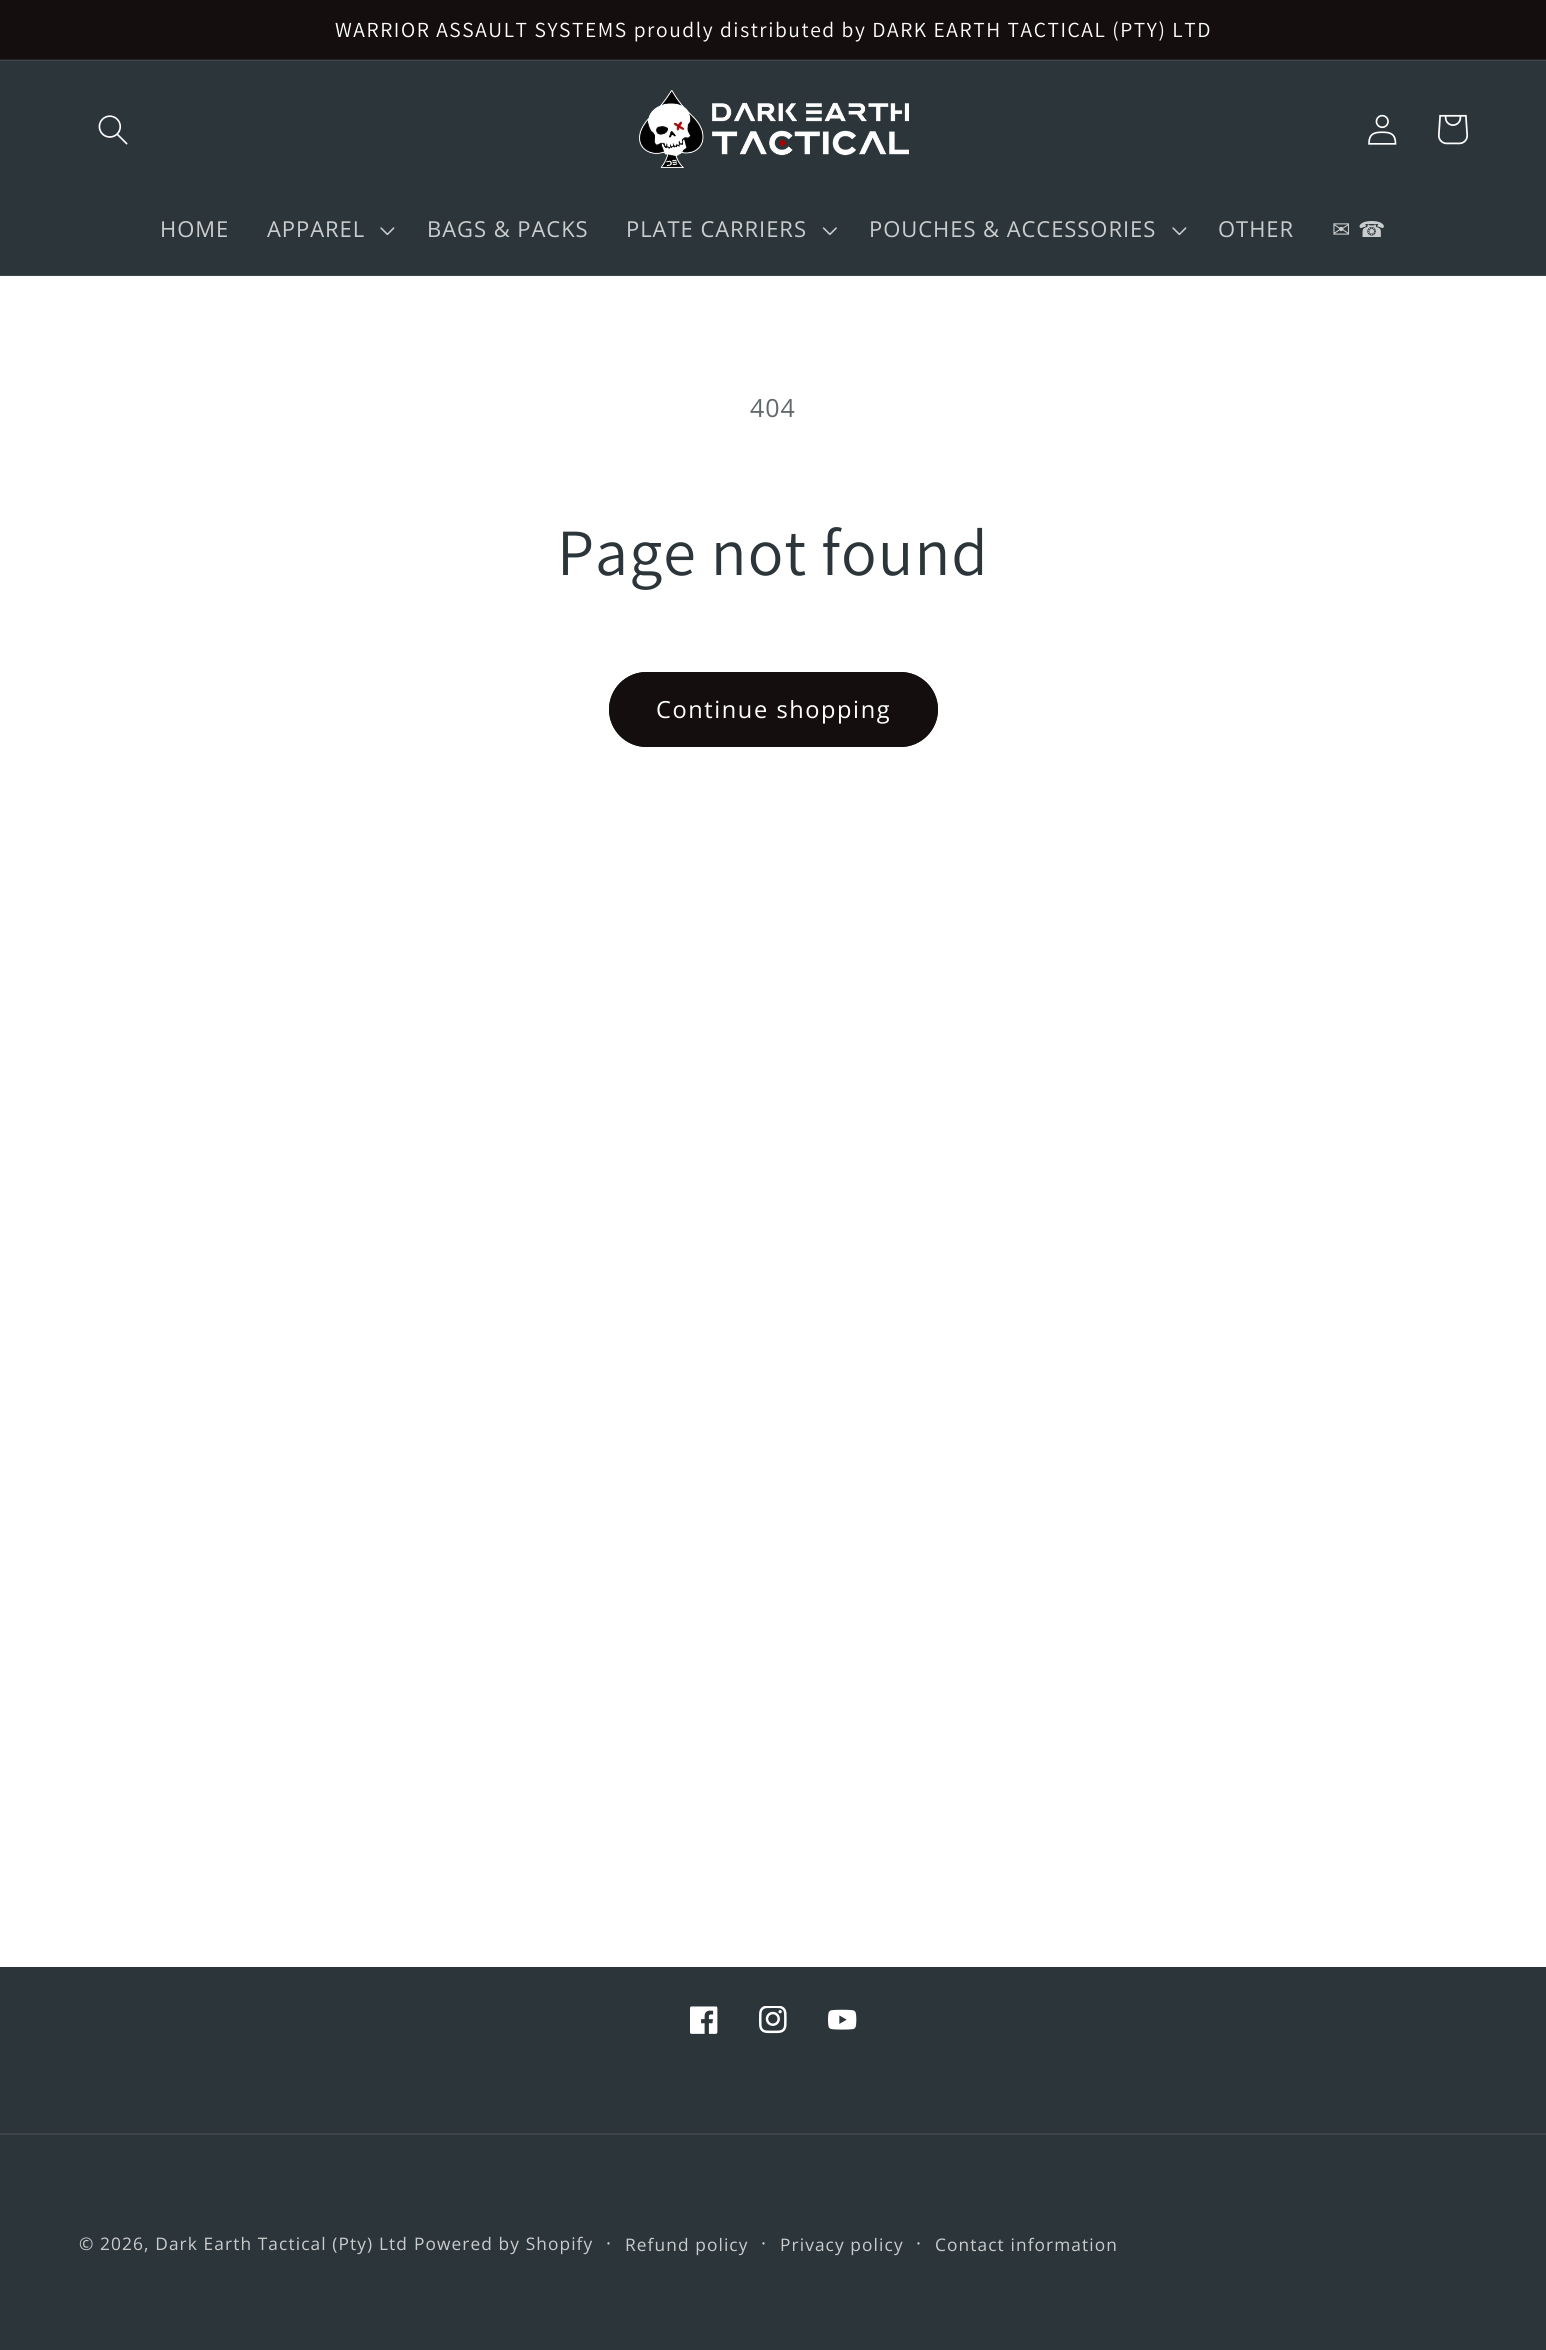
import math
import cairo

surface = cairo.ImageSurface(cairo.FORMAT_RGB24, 1546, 2350)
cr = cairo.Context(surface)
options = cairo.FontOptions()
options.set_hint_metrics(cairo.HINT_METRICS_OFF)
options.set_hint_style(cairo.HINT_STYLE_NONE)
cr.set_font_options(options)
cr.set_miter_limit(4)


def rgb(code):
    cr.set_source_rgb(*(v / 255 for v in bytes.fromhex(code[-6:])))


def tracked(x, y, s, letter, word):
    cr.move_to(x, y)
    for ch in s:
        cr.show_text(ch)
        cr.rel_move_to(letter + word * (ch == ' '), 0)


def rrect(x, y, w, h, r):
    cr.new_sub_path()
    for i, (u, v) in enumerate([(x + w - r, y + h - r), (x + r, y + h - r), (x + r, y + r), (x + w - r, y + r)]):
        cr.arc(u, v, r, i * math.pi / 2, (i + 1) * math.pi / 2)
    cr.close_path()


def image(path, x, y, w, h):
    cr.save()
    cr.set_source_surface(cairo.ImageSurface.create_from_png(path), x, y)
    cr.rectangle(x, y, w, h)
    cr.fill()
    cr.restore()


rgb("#ffffff")
cr.paint()
for x, y, w, h, color in [
    (0, 0, 1546, 59, "#150e0e"),
    (0, 59, 1546, 1, "#282121"),
    (0, 61, 1546, 214, "#2c3539"),
    (0, 60, 1546, 1, "#3d4549"),
    (0, 275, 1546, 1, "#3d4549"),
]:
    rgb(color)
    cr.rectangle(x, y, w, h)
    cr.fill()
image("img/1.png", 98, 115, 30, 30)
image("img/2.png", 639, 90, 270, 78)
image("img/3.png", 1368, 114, 29, 31)
image("img/4.png", 1438, 114, 30, 31)
image("img/5.png", 380, 227, 15, 9)
image("img/6.png", 822, 227, 15, 9)
image("img/5.png", 1172, 227, 15, 9)
rgb("#150e0e")
rrect(609, 672, 329, 75, 37.5)
cr.fill()
rrect(610, 673, 327, 73, 36.5)
cr.stroke()
rgb("#2c3539")
cr.rectangle(0, 1967, 1546, 383)
cr.fill()
image("img/7.png", 690, 2006, 28, 28)
image("img/8.png", 759, 2006, 28, 28)
image("img/9.png", 828, 2009, 29, 21)
rgb("#3d4549")
cr.rectangle(0, 2133, 1546, 2)
cr.fill()
cr.select_font_face("Assistant")
cr.set_font_size(21.45)
rgb("#ffffff")
tracked(335, 37, "WARRIOR ASSAULT SYSTEMS proudly distributed by DARK EARTH TACTICAL (PTY) LTD", 1.58, 0)
cr.select_font_face("Open Sans")
cr.set_font_size(22)
rgb("#cacdce")
for x, y, s in [
    (160, 237, "HOME"),
    (267, 237, "APPAREL"),
    (427, 237, "BAGS & PACKS"),
    (626, 237, "PLATE CARRIERS"),
    (869, 237, "POUCHES & ACCESSORIES"),
    (1218, 237, "OTHER"),
]:
    tracked(x, y, s, 0.95, 0)
cr.select_font_face("DejaVu Sans")
tracked(1332, 237, "✉", 0.95, 0)
tracked(1358, 237, "☎", 0.95, 0)
cr.select_font_face("Open Sans")
cr.set_font_size(25)
rgb("#61686b")
tracked(750, 417, "404", 0.95, 0)
cr.select_font_face("Assistant")
cr.set_font_size(66)
rgb("#2c3539")
tracked(557, 575, "Page not found", 1, 0)
cr.select_font_face("Open Sans")
cr.set_font_size(23.6)
rgb("#ffffff")
tracked(656, 718, "Continue shopping", 1.58, 0)
cr.set_font_size(17.3)
rgb("#cacdce")
tracked(79, 2250, "© 2026, Dark Earth Tactical (Pty) Ltd", 1.1, 0)
tracked(414, 2250, "Powered by Shopify", 1.1, 0)
cr.set_font_size(19)
tracked(606, 2250, "·", 1.1, 0)
cr.set_font_size(17.3)
tracked(625, 2251, "Refund policy", 1.1, 0)
cr.set_font_size(19)
tracked(761, 2250, "·", 1.1, 0)
cr.set_font_size(17.3)
tracked(780, 2251, "Privacy policy", 1.1, 0)
cr.set_font_size(19)
tracked(916, 2250, "·", 1.1, 0)
cr.set_font_size(17.3)
tracked(935, 2251, "Contact information", 1.1, 0)
surface.write_to_png("page.png")
